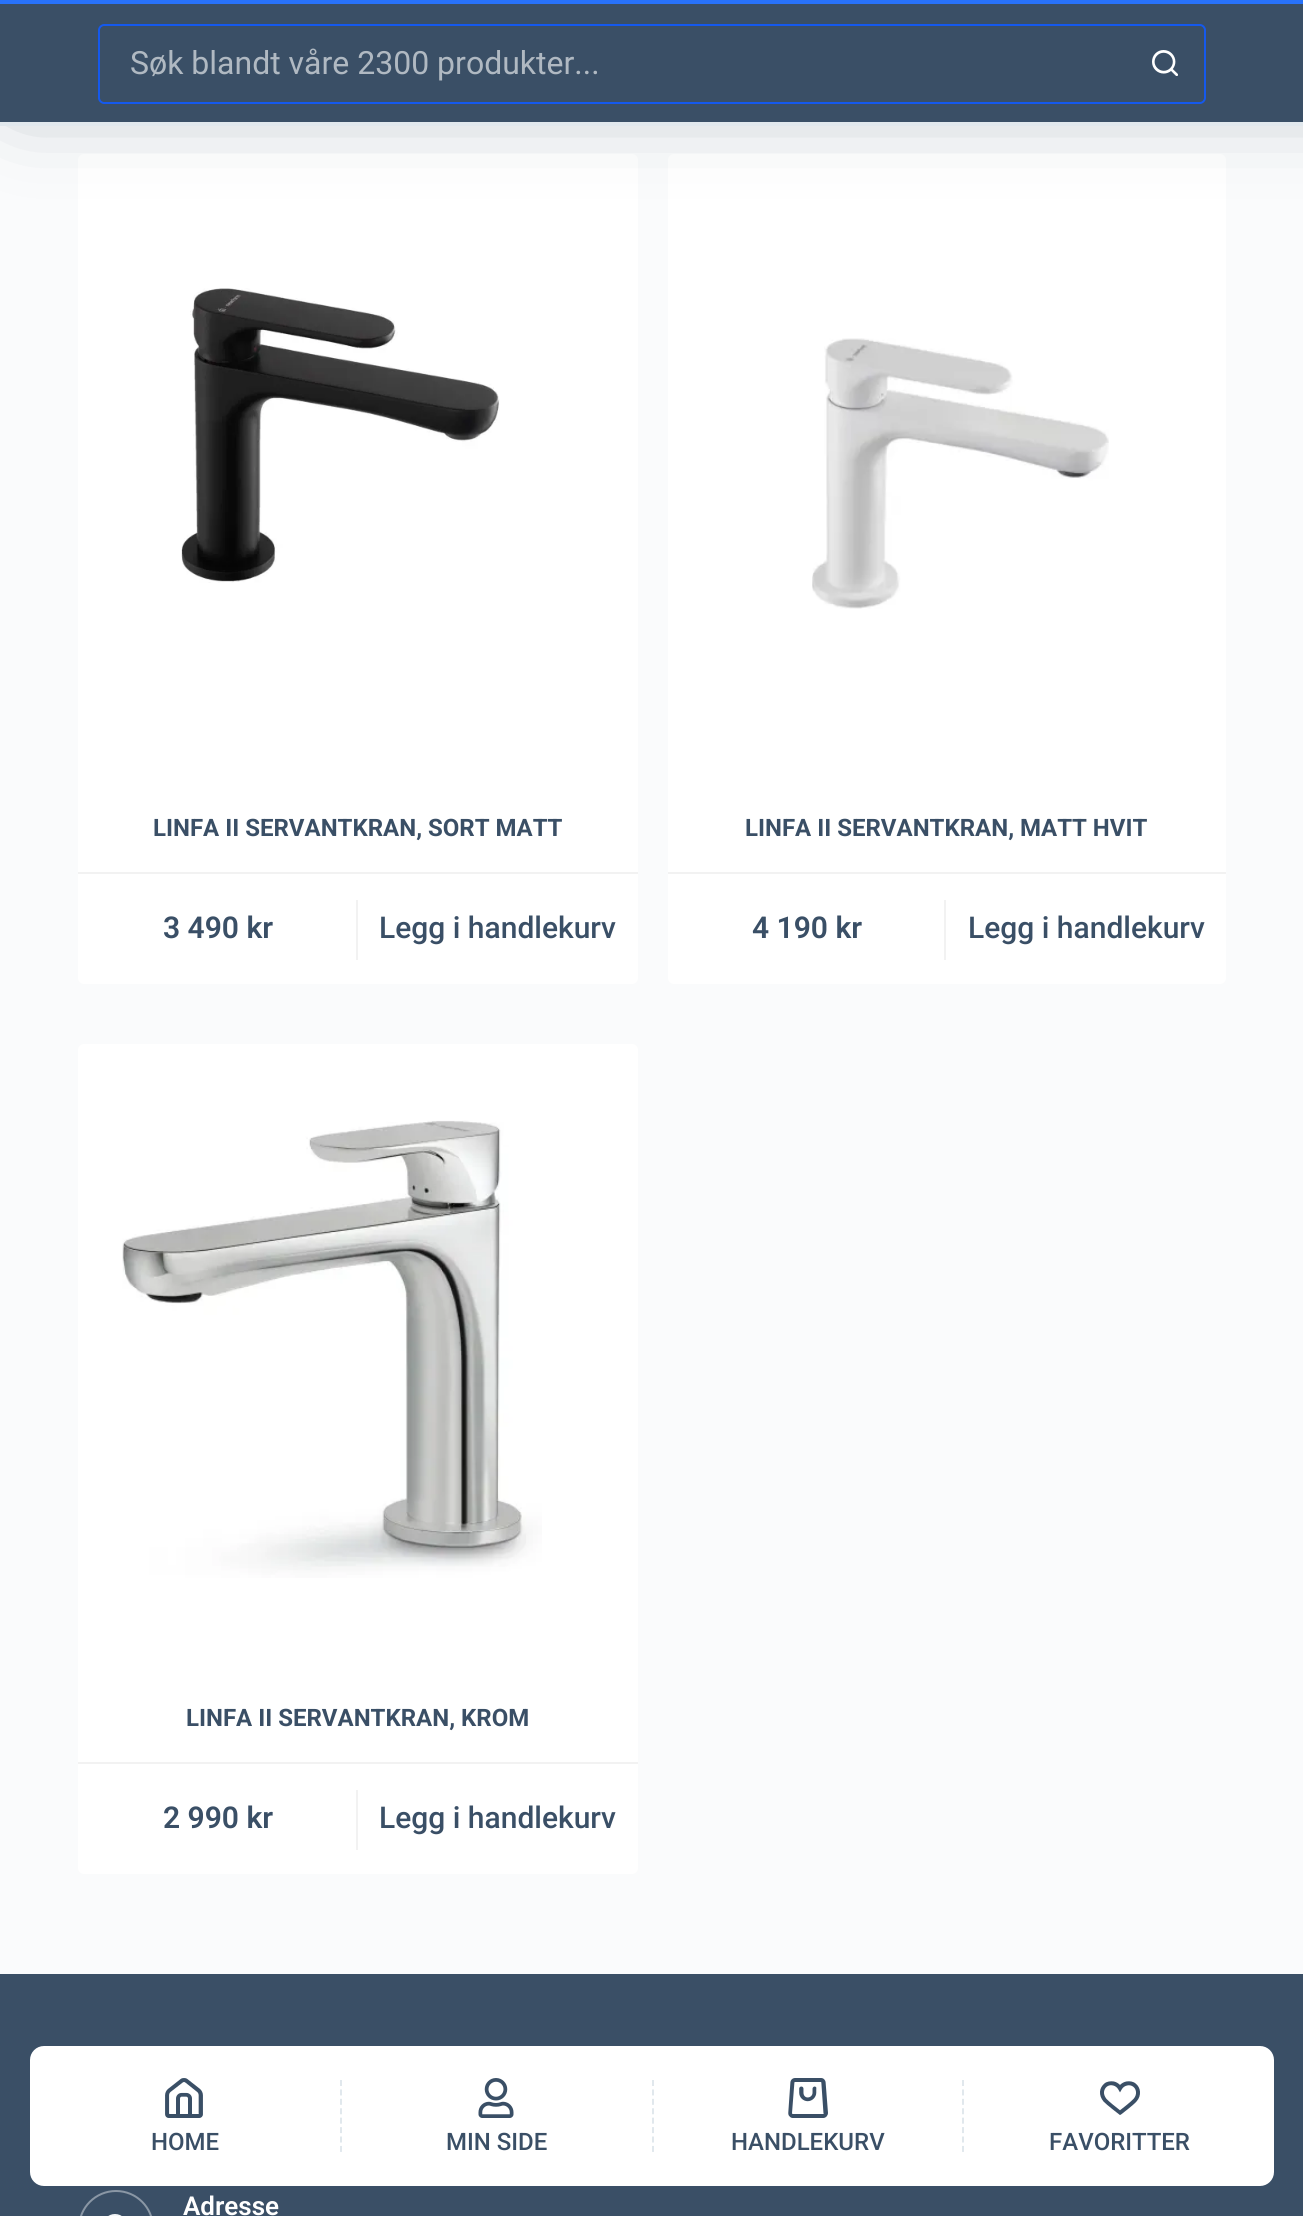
import math
import cairo

surface = cairo.ImageSurface(cairo.FORMAT_RGB24, 1303, 2216)
cr = cairo.Context(surface)
options = cairo.FontOptions()
options.set_hint_metrics(cairo.HINT_METRICS_OFF)
options.set_hint_style(cairo.HINT_STYLE_NONE)
cr.set_font_options(options)
cr.set_miter_limit(4)


def rgb(code):
    cr.set_source_rgb(*(v / 255 for v in bytes.fromhex(code[-6:])))


def rrect(x, y, w, h, r):
    cr.new_sub_path()
    for i, (u, v) in enumerate([(x + w - r, y + h - r), (x + r, y + h - r), (x + r, y + r), (x + w - r, y + r)]):
        cr.arc(u, v, r, i * math.pi / 2, (i + 1) * math.pi / 2)
    cr.close_path()


def soft_shadow(x, y, w, h, r, blur, alpha):
    cr.push_group_with_content(cairo.CONTENT_ALPHA)
    cr.set_operator(cairo.OPERATOR_SOURCE)
    for i in range(15, -16, -2):
        e = blur * i / 6
        if min(w, h) + 2 * e > 0:
            cr.set_source_rgba(0, 0, 0, alpha * math.erfc((i - 1) / 8.5) / 2)
            rrect(x - e, y - e, w + 2 * e, h + 2 * e, max(0, min(r + e + blur * .6, min(w, h) / 2 + e)))
            cr.fill()
    cr.mask(cr.pop_group())


def image(path, x, y, w, h):
    cr.save()
    cr.set_source_surface(cairo.ImageSurface.create_from_png(path), x, y)
    cr.rectangle(x, y, w, h)
    cr.fill()
    cr.restore()


rgb("#fafbfc")
cr.paint()
rgb("#ffffff")
rrect(78, 154, 560, 830, 6)
cr.fill()
rrect(668, 154, 558, 830, 6)
cr.fill()
rgb("#2b3d4f")
soft_shadow(20, -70, 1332, 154, 0, 46, 0.58)
for x, y, w, h, color in [
    (0, 4, 1303, 118, "#3a4f66"),
    (0, 0, 1303, 4, "#2872fa"),
    (0, 122, 1303, 4, "#e1e8ed"),
]:
    rgb(color)
    cr.rectangle(x, y, w, h)
    cr.fill()
rgb("#1559ed")
cr.set_fill_rule(cairo.FILL_RULE_EVEN_ODD)
cr.new_path()
cr.move_to(104, 24)
cr.line_to(1126, 24)
cr.line_to(1126, 104)
cr.line_to(104, 104)
cr.curve_to(101, 104, 98, 101, 98, 98)
cr.line_to(98, 30)
cr.curve_to(98, 27, 101, 24, 104, 24)
cr.close_path()
cr.move_to(104, 26)
cr.line_to(1126, 26)
cr.line_to(1126, 102)
cr.line_to(104, 102)
cr.curve_to(102, 102, 100, 100, 100, 98)
cr.line_to(100, 30)
cr.curve_to(100, 28, 102, 26, 104, 26)
cr.close_path()
cr.fill()
cr.new_path()
cr.move_to(1126, 24)
cr.line_to(1200, 24)
cr.curve_to(1203, 24, 1206, 27, 1206, 30)
cr.line_to(1206, 98)
cr.curve_to(1206, 101, 1203, 104, 1200, 104)
cr.line_to(1126, 104)
cr.close_path()
cr.move_to(1126, 26)
cr.line_to(1200, 26)
cr.curve_to(1202, 26, 1204, 28, 1204, 30)
cr.line_to(1204, 98)
cr.curve_to(1204, 100, 1202, 102, 1200, 102)
cr.line_to(1126, 102)
cr.close_path()
cr.fill()
image("img/1.png", 1152, 50, 26, 26)
image("img/2.png", 181, 288, 319, 295)
rgb("#f2f2f2")
cr.rectangle(78, 872, 560, 2)
cr.fill()
cr.rectangle(356, 900, 2, 60)
cr.fill()
image("img/3.png", 812, 338, 297, 271)
cr.rectangle(668, 872, 558, 2)
cr.fill()
cr.rectangle(944, 900, 2, 60)
cr.fill()
rgb("#ffffff")
rrect(78, 1044, 560, 830, 6)
cr.fill()
image("img/4.png", 122, 1120, 420, 458)
for x, y, w, h, color in [
    (78, 1762, 560, 2, "#f2f2f2"),
    (356, 1790, 2, 60, "#f2f2f2"),
    (0, 1974, 1303, 242, "#3a4f66"),
]:
    rgb(color)
    cr.rectangle(x, y, w, h)
    cr.fill()
rrect(79, 2191, 74, 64, 37)
rgb("#8a97a5")
cr.stroke()
image("img/5.png", 108, 2214, 14, 2)
rgb("#ffffff")
rrect(30, 2046, 1244, 140, 14)
cr.fill()
image("img/6.png", 165, 2078, 38, 40)
cr.new_path()
cr.move_to(341, 2080)
cr.line_to(341, 2152)
rgb("#e1e8ed")
cr.set_dash([6, 3.42])
cr.stroke()
image("img/7.png", 478, 2078, 36, 40)
cr.new_path()
cr.move_to(653, 2080)
cr.line_to(653, 2152)
cr.stroke()
image("img/8.png", 788, 2078, 40, 40)
cr.new_path()
cr.move_to(963, 2080)
cr.line_to(963, 2152)
cr.stroke()
image("img/9.png", 1100, 2081, 40, 34)
cr.select_font_face("Roboto")
cr.set_font_size(32)
rgb("#b0b9c2")
cr.move_to(130, 74)
cr.show_text("Søk blandt våre 2300 produkter...")
cr.select_font_face("Roboto", cairo.FONT_SLANT_NORMAL, cairo.FONT_WEIGHT_BOLD)
cr.set_font_size(24)
rgb("#3a4f66")
cr.move_to(153, 836)
cr.show_text("LINFA II SERVANTKRAN, SORT MATT")
cr.select_font_face("Roboto SemiBold")
cr.set_font_size(30)
cr.move_to(163, 938)
cr.show_text("3 490 kr")
cr.select_font_face("Roboto Medium")
cr.move_to(379, 938)
cr.show_text("Legg i handlekurv")
cr.select_font_face("Roboto", cairo.FONT_SLANT_NORMAL, cairo.FONT_WEIGHT_BOLD)
cr.set_font_size(24)
cr.move_to(745, 836)
cr.show_text("LINFA II SERVANTKRAN, MATT HVIT")
cr.select_font_face("Roboto SemiBold")
cr.set_font_size(30)
cr.move_to(752, 938)
cr.show_text("4 190 kr")
cr.select_font_face("Roboto Medium")
cr.move_to(968, 938)
cr.show_text("Legg i handlekurv")
cr.select_font_face("Roboto", cairo.FONT_SLANT_NORMAL, cairo.FONT_WEIGHT_BOLD)
cr.set_font_size(24)
cr.move_to(186, 1726)
cr.show_text("LINFA II SERVANTKRAN, KROM")
cr.select_font_face("Roboto SemiBold")
cr.set_font_size(30)
cr.move_to(163, 1828)
cr.show_text("2 990 kr")
cr.select_font_face("Roboto Medium")
cr.move_to(379, 1828)
cr.show_text("Legg i handlekurv")
cr.select_font_face("Roboto SemiBold")
cr.set_font_size(26)
rgb("#ffffff")
cr.move_to(183, 2215)
cr.show_text("Adresse")
cr.select_font_face("Roboto Medium")
cr.set_font_size(24)
rgb("#3a4f66")
for x, y, s in [
    (151, 2150, "HOME"),
    (446, 2150, "MIN SIDE"),
    (731, 2150, "HANDLEKURV"),
    (1049, 2150, "FAVORITTER"),
]:
    cr.move_to(x, y)
    cr.show_text(s)
surface.write_to_png("page.png")
